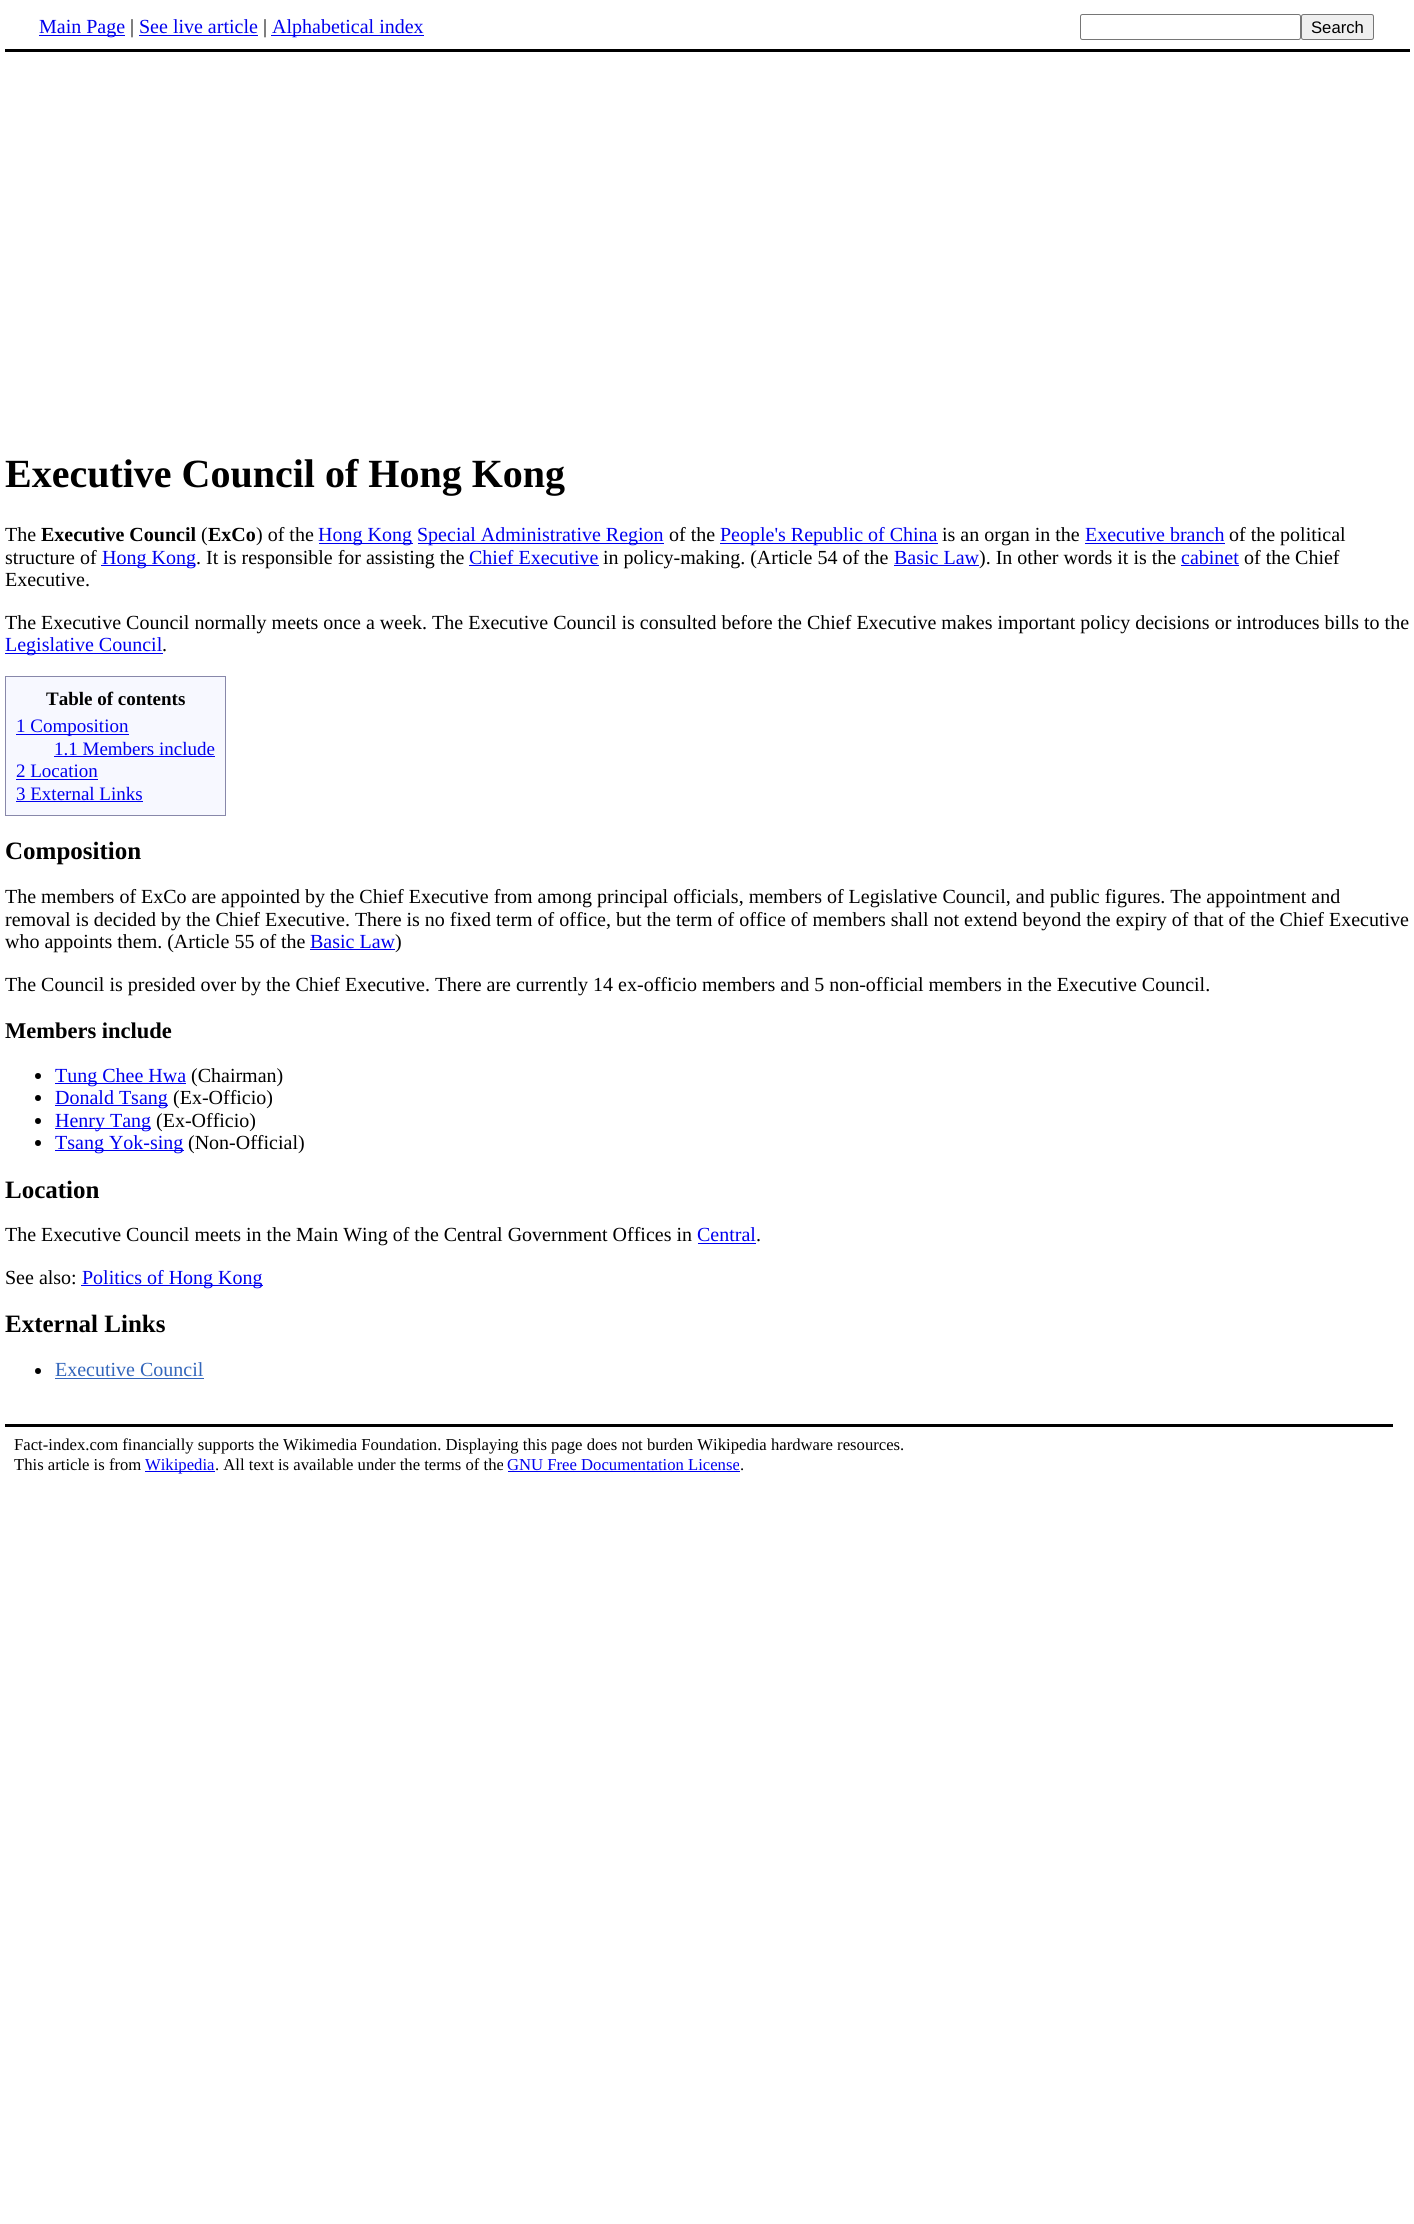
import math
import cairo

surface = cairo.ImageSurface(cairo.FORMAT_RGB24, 1414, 2224)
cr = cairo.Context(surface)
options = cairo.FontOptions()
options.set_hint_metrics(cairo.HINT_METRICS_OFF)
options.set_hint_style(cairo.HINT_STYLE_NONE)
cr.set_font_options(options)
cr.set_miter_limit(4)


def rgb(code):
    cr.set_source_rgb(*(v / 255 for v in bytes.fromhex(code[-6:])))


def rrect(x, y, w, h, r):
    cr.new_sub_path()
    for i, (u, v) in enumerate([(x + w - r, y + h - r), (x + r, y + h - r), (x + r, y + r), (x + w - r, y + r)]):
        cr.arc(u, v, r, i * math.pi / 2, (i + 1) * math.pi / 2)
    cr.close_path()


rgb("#ffffff")
cr.paint()
for x, y, w, h, color in [
    (5, 49, 1405, 3, "#000000"),
    (39, 35, 86, 1, "#0000ee"),
    (139, 35, 119, 1, "#0000ee"),
    (271, 35, 153, 1, "#0000ee"),
]:
    rgb(color)
    cr.rectangle(x, y, w, h)
    cr.fill()
rrect(1080.5, 14.5, 220, 25, 2)
rgb("#767676")
cr.set_line_width(1)
cr.stroke()
rgb("#efefef")
rrect(1301.5, 14.5, 72, 25, 2)
cr.fill_preserve()
rgb("#767676")
cr.stroke()
for x, y, w, h, color in [
    (319, 543, 94, 1, "#0000ee"),
    (418, 543, 246, 1, "#0000ee"),
    (720, 543, 218, 1, "#0000ee"),
    (1085, 543, 140, 1, "#0000ee"),
    (101, 565, 94, 1, "#0000ee"),
    (469, 565, 130, 1, "#0000ee"),
    (894, 565, 85, 1, "#0000ee"),
    (1181, 565, 58, 1, "#0000ee"),
    (5, 653, 158, 1, "#0000ee"),
]:
    rgb(color)
    cr.rectangle(x, y, w, h)
    cr.fill()
rgb("#f7f8ff")
cr.rectangle(5.5, 676.5, 220, 139)
cr.fill_preserve()
rgb("#8888aa")
cr.stroke()
for x, y, w, h, color in [
    (16, 734, 113, 1, "#0000ee"),
    (54, 756, 161, 1, "#0000ee"),
    (16, 779, 82, 1, "#0000ee"),
    (16, 801, 127, 1, "#0000ee"),
    (310, 949, 85, 1, "#0000ee"),
]:
    rgb(color)
    cr.rectangle(x, y, w, h)
    cr.fill()
rgb("#000000")
cr.arc(38, 1076, 3, 0, 2 * math.pi)
cr.fill()
rgb("#0000ee")
cr.rectangle(55, 1083, 131, 1)
cr.fill()
rgb("#000000")
cr.arc(38, 1098, 3, 0, 2 * math.pi)
cr.fill()
rgb("#0000ee")
cr.rectangle(55, 1105, 113, 1)
cr.fill()
rgb("#000000")
cr.arc(38, 1121, 3, 0, 2 * math.pi)
cr.fill()
rgb("#0000ee")
cr.rectangle(55, 1128, 96, 1)
cr.fill()
rgb("#000000")
cr.arc(38, 1143, 3, 0, 2 * math.pi)
cr.fill()
for x, y, w, h, color in [
    (55, 1150, 129, 1, "#0000ee"),
    (698, 1243, 58, 1, "#0000ee"),
    (81, 1285, 182, 1, "#0000ee"),
]:
    rgb(color)
    cr.rectangle(x, y, w, h)
    cr.fill()
rgb("#000000")
cr.arc(38, 1371, 3, 0, 2 * math.pi)
cr.fill()
for x, y, w, h, color in [
    (55, 1378, 149, 1, "#3366bb"),
    (5, 1424, 1388, 3, "#000000"),
    (145, 1471, 70, 1, "#0000ee"),
    (508, 1471, 232, 1, "#0000ee"),
]:
    rgb(color)
    cr.rectangle(x, y, w, h)
    cr.fill()
cr.select_font_face("Liberation Serif")
cr.set_font_size(20)
cr.move_to(39, 33)
cr.show_text("Main Page")
rgb("#000000")
cr.move_to(130, 33)
cr.show_text("|")
rgb("#0000ee")
cr.move_to(139, 33)
cr.show_text("See live article")
rgb("#000000")
cr.move_to(263, 33)
cr.show_text("|")
rgb("#0000ee")
cr.move_to(272, 33)
cr.show_text("Alphabetical index")
cr.select_font_face("Liberation Sans")
cr.set_font_size(16.67)
rgb("#000000")
cr.move_to(1311, 33)
cr.show_text("Search")
cr.select_font_face("Liberation Serif", cairo.FONT_SLANT_NORMAL, cairo.FONT_WEIGHT_BOLD)
cr.set_font_size(40)
cr.move_to(5, 487)
cr.show_text("Executive Council of Hong Kong")
cr.select_font_face("Liberation Serif")
cr.set_font_size(20)
cr.move_to(5, 541)
cr.show_text("The")
cr.select_font_face("Liberation Serif", cairo.FONT_SLANT_NORMAL, cairo.FONT_WEIGHT_BOLD)
cr.move_to(41, 541)
cr.show_text("Executive Council")
cr.select_font_face("Liberation Serif")
cr.move_to(201, 541)
cr.show_text("(")
cr.select_font_face("Liberation Serif", cairo.FONT_SLANT_NORMAL, cairo.FONT_WEIGHT_BOLD)
cr.move_to(208, 541)
cr.show_text("ExCo")
cr.select_font_face("Liberation Serif")
cr.move_to(256, 541)
cr.show_text(") of the")
rgb("#0000ee")
cr.move_to(318, 541)
cr.show_text("Hong Kong")
cr.move_to(417, 541)
cr.show_text("Special Administrative Region")
rgb("#000000")
cr.move_to(669, 541)
cr.show_text("of the")
rgb("#0000ee")
cr.move_to(720, 541)
cr.show_text("People's Republic of China")
rgb("#000000")
cr.move_to(942, 541)
cr.show_text("is an organ in the")
rgb("#0000ee")
cr.move_to(1085, 541)
cr.show_text("Executive branch")
rgb("#000000")
cr.move_to(1229, 541)
cr.show_text("of the political")
cr.move_to(5, 564)
cr.show_text("structure of")
rgb("#0000ee")
cr.move_to(102, 564)
cr.show_text("Hong Kong")
rgb("#000000")
cr.move_to(196, 564)
cr.show_text(". It is responsible for assisting the")
rgb("#0000ee")
cr.move_to(469, 564)
cr.show_text("Chief Executive")
rgb("#000000")
cr.move_to(603, 564)
cr.show_text("in policy-making. (Article 54 of the")
rgb("#0000ee")
cr.move_to(894, 564)
cr.show_text("Basic Law")
rgb("#000000")
cr.move_to(979, 564)
cr.show_text("). In other words it is the")
rgb("#0000ee")
cr.move_to(1181, 564)
cr.show_text("cabinet")
rgb("#000000")
for x, y, s in [
    (1244, 564, "of the Chief"),
    (5, 586, "Executive."),
    (5, 629, "The Executive Council normally meets once a week. The Executive Council is consulted before the Chief Executive makes important policy decisions or introduces bills to the"),
]:
    cr.move_to(x, y)
    cr.show_text(s)
rgb("#0000ee")
cr.move_to(5, 651)
cr.show_text("Legislative Council")
rgb("#000000")
cr.move_to(162, 651)
cr.show_text(".")
cr.select_font_face("Liberation Serif", cairo.FONT_SLANT_NORMAL, cairo.FONT_WEIGHT_BOLD)
cr.set_font_size(19)
cr.move_to(46, 705)
cr.show_text("Table of contents")
cr.select_font_face("Liberation Serif")
rgb("#0000ee")
for x, y, s in [
    (16, 732, "1 Composition"),
    (54, 755, "1.1 Members include"),
    (16, 777, "2 Location"),
    (16, 800, "3 External Links"),
]:
    cr.move_to(x, y)
    cr.show_text(s)
cr.select_font_face("Liberation Serif", cairo.FONT_SLANT_NORMAL, cairo.FONT_WEIGHT_BOLD)
cr.set_font_size(25)
rgb("#000000")
cr.move_to(5, 859)
cr.show_text("Composition")
cr.select_font_face("Liberation Serif")
cr.set_font_size(20)
for x, y, s in [
    (5, 903, "The members of ExCo are appointed by the Chief Executive from among principal officials, members of Legislative Council, and public figures. The appointment and"),
    (5, 926, "removal is decided by the Chief Executive. There is no fixed term of office, but the term of office of members shall not extend beyond the expiry of that of the Chief Executive"),
    (5, 948, "who appoints them. (Article 55 of the"),
]:
    cr.move_to(x, y)
    cr.show_text(s)
rgb("#0000ee")
cr.move_to(310, 948)
cr.show_text("Basic Law")
rgb("#000000")
cr.move_to(395, 948)
cr.show_text(")")
cr.move_to(5, 991)
cr.show_text("The Council is presided over by the Chief Executive. There are currently 14 ex-officio members and 5 non-official members in the Executive Council.")
cr.select_font_face("Liberation Serif", cairo.FONT_SLANT_NORMAL, cairo.FONT_WEIGHT_BOLD)
cr.set_font_size(22.5)
cr.move_to(5, 1038)
cr.show_text("Members include")
cr.select_font_face("Liberation Serif")
cr.set_font_size(20)
rgb("#0000ee")
cr.move_to(55, 1082)
cr.show_text("Tung Chee Hwa")
rgb("#000000")
cr.move_to(191, 1082)
cr.show_text("(Chairman)")
rgb("#0000ee")
cr.move_to(55, 1104)
cr.show_text("Donald Tsang")
rgb("#000000")
cr.move_to(173, 1104)
cr.show_text("(Ex-Officio)")
rgb("#0000ee")
cr.move_to(55, 1127)
cr.show_text("Henry Tang")
rgb("#000000")
cr.move_to(156, 1127)
cr.show_text("(Ex-Officio)")
rgb("#0000ee")
cr.move_to(55, 1149)
cr.show_text("Tsang Yok-sing")
rgb("#000000")
cr.move_to(188, 1149)
cr.show_text("(Non-Official)")
cr.select_font_face("Liberation Serif", cairo.FONT_SLANT_NORMAL, cairo.FONT_WEIGHT_BOLD)
cr.set_font_size(25)
cr.move_to(5, 1198)
cr.show_text("Location")
cr.select_font_face("Liberation Serif")
cr.set_font_size(20)
cr.move_to(5, 1241)
cr.show_text("The Executive Council meets in the Main Wing of the Central Government Offices in")
rgb("#0000ee")
cr.move_to(697, 1241)
cr.show_text("Central")
rgb("#000000")
cr.move_to(756, 1241)
cr.show_text(".")
cr.move_to(5, 1284)
cr.show_text("See also:")
rgb("#0000ee")
cr.move_to(82, 1284)
cr.show_text("Politics of Hong Kong")
cr.select_font_face("Liberation Serif", cairo.FONT_SLANT_NORMAL, cairo.FONT_WEIGHT_BOLD)
cr.set_font_size(25)
rgb("#000000")
cr.move_to(5, 1332)
cr.show_text("External Links")
cr.select_font_face("Liberation Serif")
cr.set_font_size(20)
rgb("#3366bb")
cr.move_to(55, 1376)
cr.show_text("Executive Council")
cr.set_font_size(16.67)
rgb("#000000")
cr.move_to(14, 1450)
cr.show_text("Fact-index.com financially supports the Wikimedia Foundation. Displaying this page does not burden Wikipedia hardware resources.")
cr.move_to(14, 1470)
cr.show_text("This article is from")
rgb("#0000ee")
cr.move_to(145, 1470)
cr.show_text("Wikipedia")
rgb("#000000")
cr.move_to(215, 1470)
cr.show_text(". All text is available under the terms of the")
rgb("#0000ee")
cr.move_to(507, 1470)
cr.show_text("GNU Free Documentation License")
rgb("#000000")
cr.move_to(740, 1470)
cr.show_text(".")
surface.write_to_png("page.png")
